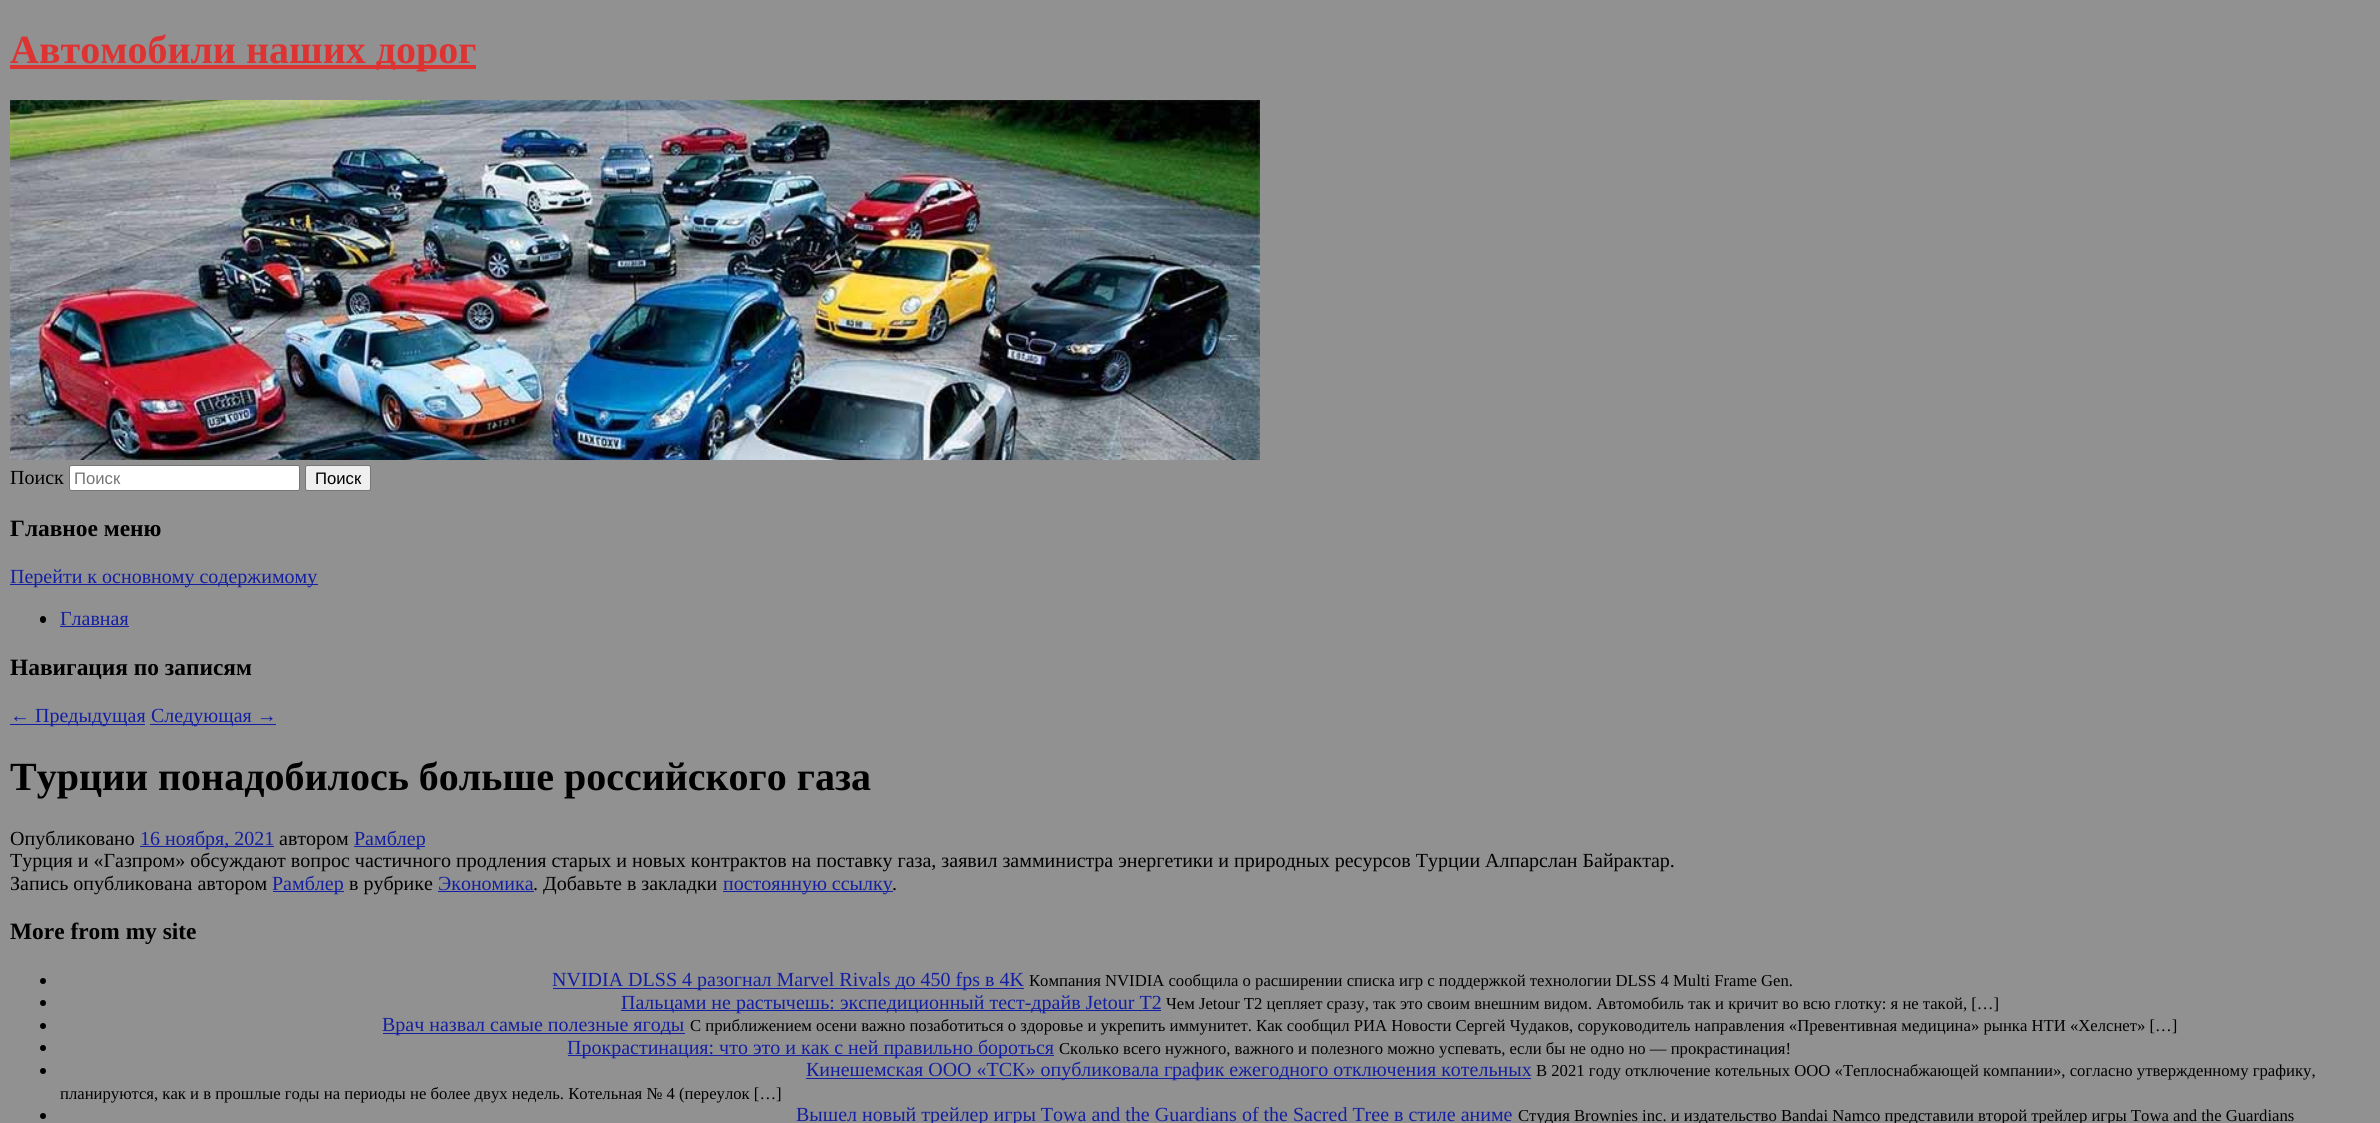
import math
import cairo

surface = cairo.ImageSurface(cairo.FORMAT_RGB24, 2380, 1123)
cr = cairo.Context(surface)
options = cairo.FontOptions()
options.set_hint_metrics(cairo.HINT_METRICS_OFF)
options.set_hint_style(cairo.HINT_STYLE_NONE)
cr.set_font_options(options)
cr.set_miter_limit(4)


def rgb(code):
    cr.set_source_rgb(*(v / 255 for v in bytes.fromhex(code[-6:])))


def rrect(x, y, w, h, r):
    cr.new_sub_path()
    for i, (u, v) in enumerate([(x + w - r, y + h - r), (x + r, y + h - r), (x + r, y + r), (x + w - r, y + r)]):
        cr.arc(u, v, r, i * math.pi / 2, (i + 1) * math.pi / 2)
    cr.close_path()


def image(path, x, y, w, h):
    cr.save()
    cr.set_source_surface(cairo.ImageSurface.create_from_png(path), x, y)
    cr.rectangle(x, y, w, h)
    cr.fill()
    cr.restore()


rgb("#919191")
cr.paint()
rgb("#dd3333")
cr.rectangle(10, 65, 466, 4)
cr.fill()
image("img/1.png", 10, 100, 1250, 360)
rgb("#ffffff")
rrect(69.5, 465.5, 230, 25, 2)
cr.fill_preserve()
rgb("#767676")
cr.set_line_width(1)
cr.stroke()
rgb("#efefef")
rrect(305.5, 465.5, 65, 25, 2)
cr.fill_preserve()
rgb("#767676")
cr.stroke()
rgb("#131fa0")
cr.rectangle(10, 584, 308, 1)
cr.fill()
rgb("#000000")
rrect(40, 616, 6, 7, 3)
cr.fill()
for x, y, w, h, color in [
    (60, 626, 69, 1, "#131fa0"),
    (10, 724, 135, 1, "#131fa0"),
    (150, 724, 126, 1, "#131fa0"),
    (140, 846, 134, 1, "#131fa0"),
    (354, 846, 71, 1, "#131fa0"),
    (273, 891, 71, 1, "#131fa0"),
    (438, 891, 96, 1, "#131fa0"),
    (723, 891, 170, 1, "#131fa0"),
]:
    rgb(color)
    cr.rectangle(x, y, w, h)
    cr.fill()
rgb("#000000")
cr.arc(43, 981, 3, 0, 2 * math.pi)
cr.fill()
rgb("#131fa0")
cr.rectangle(553, 988, 471, 1)
cr.fill()
rgb("#000000")
cr.arc(43, 1003, 3, 0, 2 * math.pi)
cr.fill()
rgb("#131fa0")
cr.rectangle(621, 1010, 540, 1)
cr.fill()
rgb("#000000")
cr.arc(43, 1026, 3, 0, 2 * math.pi)
cr.fill()
rgb("#131fa0")
cr.rectangle(383, 1033, 302, 1)
cr.fill()
rgb("#000000")
cr.arc(43, 1048, 3, 0, 2 * math.pi)
cr.fill()
rgb("#131fa0")
cr.rectangle(568, 1055, 486, 1)
cr.fill()
rgb("#000000")
cr.arc(43, 1071, 3, 0, 2 * math.pi)
cr.fill()
rgb("#131fa0")
cr.rectangle(806, 1078, 725, 1)
cr.fill()
rgb("#000000")
cr.arc(43, 1116, 3, 0, 2 * math.pi)
cr.fill()
cr.select_font_face("Liberation Serif", cairo.FONT_SLANT_NORMAL, cairo.FONT_WEIGHT_BOLD)
cr.set_font_size(40)
rgb("#dd3333")
cr.move_to(10, 63)
cr.show_text("Автомобили наших дорог")
cr.select_font_face("Liberation Serif")
cr.set_font_size(20)
rgb("#000000")
cr.move_to(10, 484)
cr.show_text("Поиск")
cr.select_font_face("Liberation Sans")
cr.set_font_size(16.67)
rgb("#757575")
cr.move_to(74, 484)
cr.show_text("Поиск")
rgb("#000000")
cr.move_to(315, 484)
cr.show_text("Поиск")
cr.select_font_face("Liberation Serif", cairo.FONT_SLANT_NORMAL, cairo.FONT_WEIGHT_BOLD)
cr.set_font_size(23.4)
cr.move_to(10, 536)
cr.show_text("Главное меню")
cr.select_font_face("Liberation Serif")
cr.set_font_size(20)
rgb("#131fa0")
cr.move_to(10, 583)
cr.show_text("Перейти к основному содержимому")
cr.move_to(60, 625)
cr.show_text("Главная")
cr.select_font_face("Liberation Serif", cairo.FONT_SLANT_NORMAL, cairo.FONT_WEIGHT_BOLD)
cr.set_font_size(23.4)
rgb("#000000")
cr.move_to(10, 675)
cr.show_text("Навигация по записям")
cr.select_font_face("Liberation Serif")
cr.set_font_size(20)
rgb("#131fa0")
cr.move_to(10, 722)
cr.show_text("← Предыдущая")
cr.move_to(151, 722)
cr.show_text("Следующая →")
cr.select_font_face("Liberation Serif", cairo.FONT_SLANT_NORMAL, cairo.FONT_WEIGHT_BOLD)
cr.set_font_size(40)
rgb("#000000")
cr.move_to(10, 790)
cr.show_text("Турции понадобилось больше российского газа")
cr.select_font_face("Liberation Serif")
cr.set_font_size(20)
cr.move_to(10, 845)
cr.show_text("Опубликовано")
rgb("#131fa0")
cr.move_to(140, 845)
cr.show_text("16 ноября, 2021")
rgb("#000000")
cr.move_to(279, 845)
cr.show_text("автором")
rgb("#131fa0")
cr.move_to(354, 845)
cr.show_text("Рамблер")
rgb("#000000")
cr.move_to(10, 867)
cr.show_text("Турция и «Газпром» обсуждают вопрос частичного продления старых и новых контрактов на поставку газа, заявил замминистра энергетики и природных ресурсов Турции Алпарслан Байрактар.")
cr.move_to(10, 890)
cr.show_text("Запись опубликована автором")
rgb("#131fa0")
cr.move_to(272, 890)
cr.show_text("Рамблер")
rgb("#000000")
cr.move_to(349, 890)
cr.show_text("в рубрике")
rgb("#131fa0")
cr.move_to(438, 890)
cr.show_text("Экономика")
rgb("#000000")
cr.move_to(533, 890)
cr.show_text(". Добавьте в закладки")
rgb("#131fa0")
cr.move_to(723, 890)
cr.show_text("постоянную ссылку")
rgb("#000000")
cr.move_to(892, 890)
cr.show_text(".")
cr.select_font_face("Liberation Serif", cairo.FONT_SLANT_NORMAL, cairo.FONT_WEIGHT_BOLD)
cr.set_font_size(23.4)
cr.move_to(10, 939)
cr.show_text("More from my site")
cr.select_font_face("Liberation Serif")
cr.set_font_size(20)
rgb("#131fa0")
cr.move_to(552, 986)
cr.show_text("NVIDIA DLSS 4 разогнал Marvel Rivals до 450 fps в 4K")
cr.set_font_size(16.67)
rgb("#000000")
cr.move_to(1029, 986)
cr.show_text("Компания NVIDIA сообщила о расширении списка игр с поддержкой технологии DLSS 4 Multi Frame Gen.")
cr.set_font_size(20)
rgb("#131fa0")
cr.move_to(621, 1009)
cr.show_text("Пальцами не растычешь: экспедиционный тест-драйв Jetour T2")
cr.set_font_size(16.67)
rgb("#000000")
cr.move_to(1166, 1009)
cr.show_text("Чем Jetour T2 цепляет сразу, так это своим внешним видом. Автомобиль так и кричит во всю глотку: я не такой, […]")
cr.set_font_size(20)
rgb("#131fa0")
cr.move_to(382, 1031)
cr.show_text("Врач назвал самые полезные ягоды")
cr.set_font_size(16.67)
rgb("#000000")
cr.move_to(690, 1031)
cr.show_text("С приближением осени важно позаботиться о здоровье и укрепить иммунитет. Как сообщил РИА Новости Сергей Чудаков, соруководитель направления «Превентивная медицина» рынка НТИ «Хелснет» […]")
cr.set_font_size(20)
rgb("#131fa0")
cr.move_to(567, 1054)
cr.show_text("Прокрастинация: что это и как с ней правильно бороться")
cr.set_font_size(16.67)
rgb("#000000")
cr.move_to(1059, 1054)
cr.show_text("Сколько всего нужного, важного и полезного можно успевать, если бы не одно но — прокрастинация!")
cr.set_font_size(20)
rgb("#131fa0")
cr.move_to(806, 1076)
cr.show_text("Кинешемская ООО «ТСК» опубликовала график ежегодного отключения котельных")
cr.set_font_size(16.67)
rgb("#000000")
cr.move_to(1536, 1076)
cr.show_text("В 2021 году отключение котельных ООО «Теплоснабжающей компании», согласно утвержденному графику,")
cr.move_to(60, 1099)
cr.show_text("планируются, как и в прошлые годы на периоды не более двух недель. Котельная № 4 (переулок […]")
cr.set_font_size(20)
rgb("#131fa0")
cr.move_to(796, 1121)
cr.show_text("Вышел новый трейлер игры Towa and the Guardians of the Sacred Tree в стиле аниме")
cr.set_font_size(16.67)
rgb("#000000")
cr.move_to(1518, 1121)
cr.show_text("Студия Brownies inc. и издательство Bandai Namco представили второй трейлер игры Towa and the Guardians")
surface.write_to_png("page.png")
